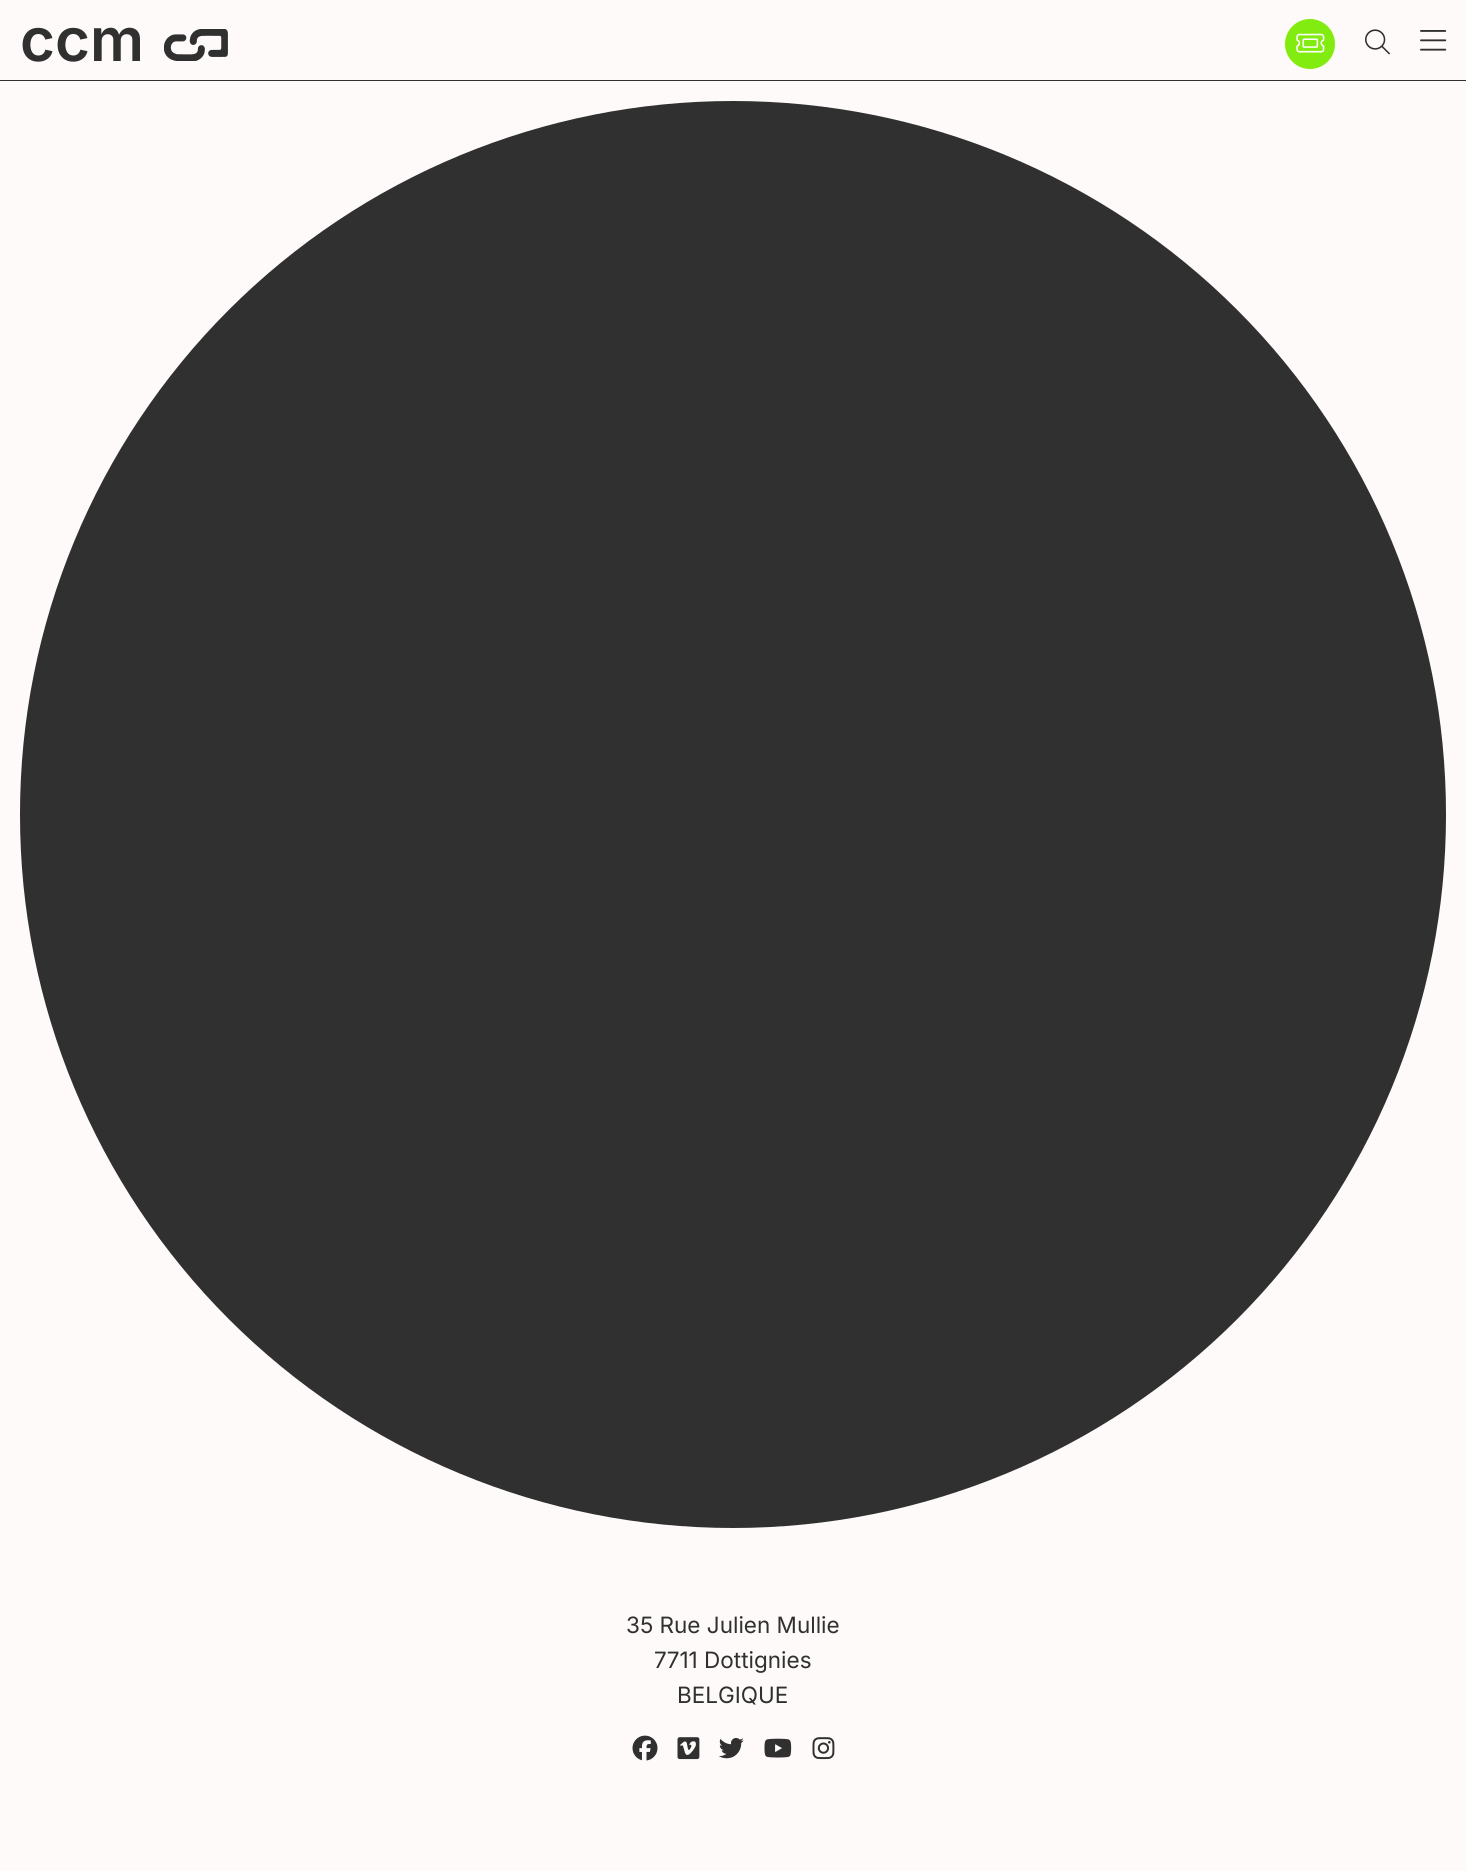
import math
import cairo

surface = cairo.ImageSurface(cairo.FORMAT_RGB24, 1466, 1871)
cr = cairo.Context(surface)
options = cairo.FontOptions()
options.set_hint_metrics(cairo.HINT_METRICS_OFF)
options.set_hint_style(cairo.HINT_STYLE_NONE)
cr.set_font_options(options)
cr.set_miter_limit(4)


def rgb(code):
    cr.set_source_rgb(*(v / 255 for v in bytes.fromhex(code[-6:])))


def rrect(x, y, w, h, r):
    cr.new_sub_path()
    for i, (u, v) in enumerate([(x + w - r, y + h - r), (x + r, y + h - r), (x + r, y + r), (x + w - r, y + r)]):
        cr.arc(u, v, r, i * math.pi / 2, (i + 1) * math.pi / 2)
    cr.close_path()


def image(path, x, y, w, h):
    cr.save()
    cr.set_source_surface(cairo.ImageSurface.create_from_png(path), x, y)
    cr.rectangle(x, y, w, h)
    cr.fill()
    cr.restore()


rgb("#fffafa")
cr.paint()
rgb("#303030")
cr.rectangle(0, 80, 1466, 1)
cr.fill()
image("img/1.png", 164, 29, 64, 32)
rgb("#82ec10")
cr.arc(1310, 44, 24.5, 0, 2 * math.pi)
cr.fill_preserve()
cr.set_line_width(1)
cr.stroke()
image("img/2.png", 1296, 33, 29, 20)
image("img/3.png", 1365, 29, 25, 26)
image("img/4.png", 1420, 30, 27, 21)
rgb("#303030")
rrect(20, 101, 1426, 1427, 713)
cr.fill()
image("img/5.png", 632, 1735, 26, 26)
image("img/6.png", 677, 1737, 23, 23)
image("img/7.png", 719, 1738, 25, 21)
image("img/8.png", 764, 1738, 28, 20)
image("img/9.png", 812, 1737, 23, 23)
cr.select_font_face("Inter SemiBold")
cr.set_font_size(60)
cr.move_to(20, 61)
cr.show_text("ccm")
cr.select_font_face("Inter")
cr.set_font_size(22.5)
for x, y, s in [
    (626, 1633, "35 Rue Julien Mullie"),
    (654, 1668, "7711 Dottignies"),
    (677, 1703, "BELGIQUE"),
]:
    cr.move_to(x, y)
    cr.show_text(s)
surface.write_to_png("page.png")
